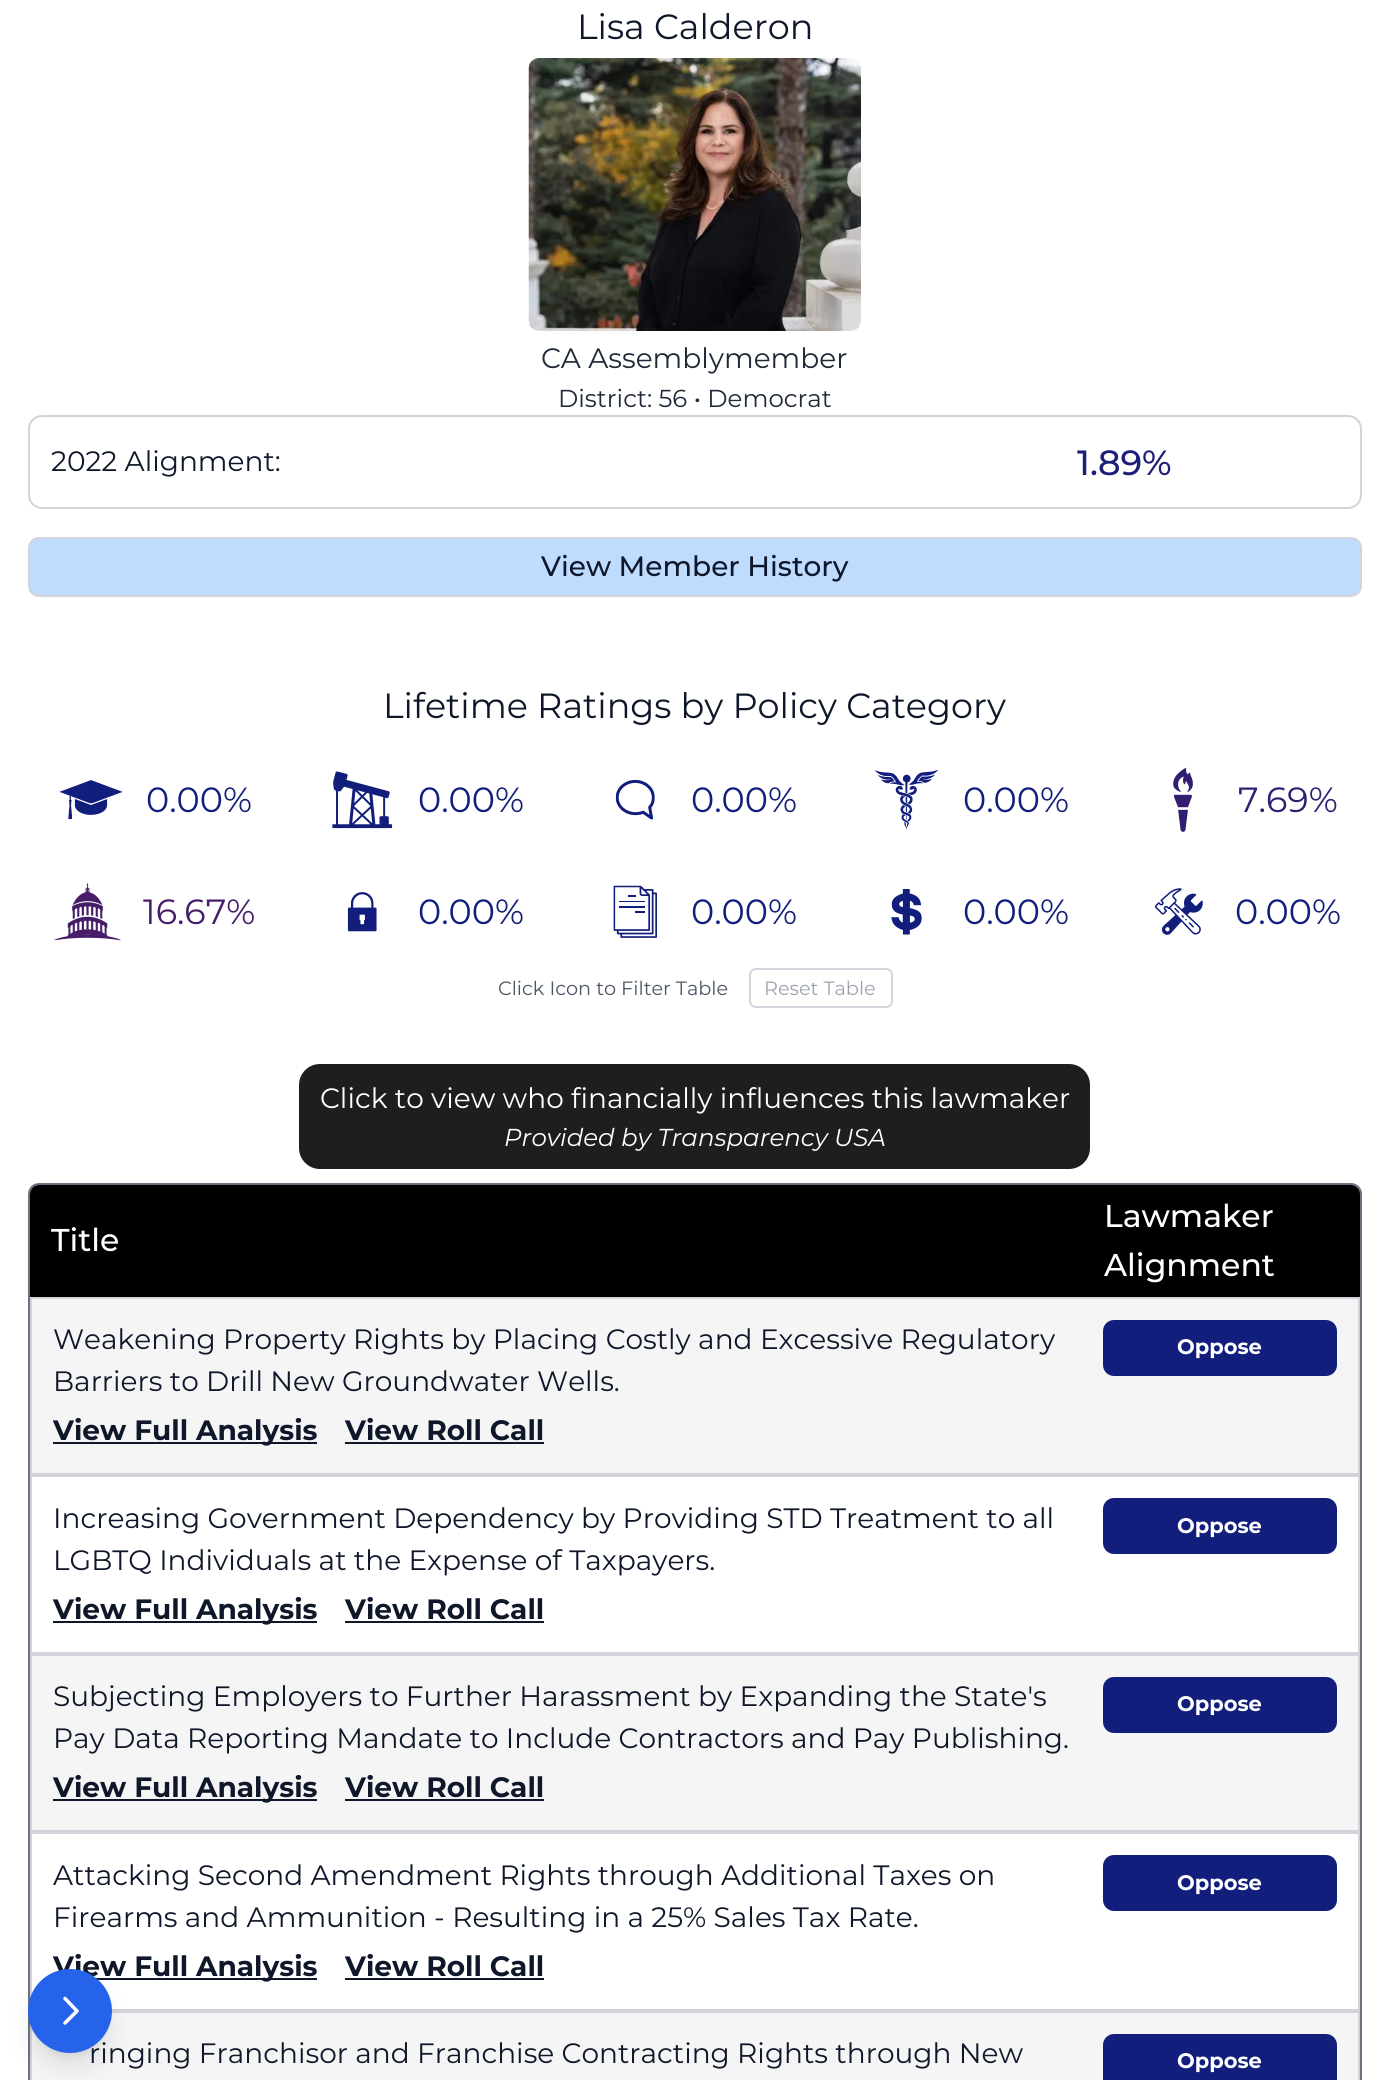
import math
import cairo

surface = cairo.ImageSurface(cairo.FORMAT_RGB24, 1389, 2080)
cr = cairo.Context(surface)
options = cairo.FontOptions()
options.set_hint_metrics(cairo.HINT_METRICS_OFF)
options.set_hint_style(cairo.HINT_STYLE_NONE)
cr.set_font_options(options)
cr.set_miter_limit(4)


def rgb(code):
    cr.set_source_rgb(*(v / 255 for v in bytes.fromhex(code[-6:])))


def rrect(x, y, w, h, r):
    cr.new_sub_path()
    for i, (u, v) in enumerate([(x + w - r, y + h - r), (x + r, y + h - r), (x + r, y + r), (x + w - r, y + r)]):
        cr.arc(u, v, r, i * math.pi / 2, (i + 1) * math.pi / 2)
    cr.close_path()


def soft_shadow(x, y, w, h, r, blur, alpha):
    cr.push_group_with_content(cairo.CONTENT_ALPHA)
    cr.set_operator(cairo.OPERATOR_SOURCE)
    for i in range(15, -16, -2):
        e = blur * i / 6
        if min(w, h) + 2 * e > 0:
            cr.set_source_rgba(0, 0, 0, alpha * math.erfc((i - 1) / 8.5) / 2)
            rrect(x - e, y - e, w + 2 * e, h + 2 * e, max(0, min(r + e + blur * .6, min(w, h) / 2 + e)))
            cr.fill()
    cr.mask(cr.pop_group())


def image(path, x, y, w, h):
    cr.save()
    cr.set_source_surface(cairo.ImageSurface.create_from_png(path), x, y)
    cr.rectangle(x, y, w, h)
    cr.fill()
    cr.restore()


rgb("#ffffff")
cr.paint()
image("img/1.png", 528, 58, 333, 273)
rrect(29, 416, 1332, 92, 13)
rgb("#d1d5db")
cr.stroke()
rgb("#bfdbfe")
rrect(29, 538, 1332, 58, 10)
cr.fill_preserve()
rgb("#d1d5db")
cr.stroke()
image("img/2.png", 59, 780, 64, 40)
image("img/3.png", 332, 771, 61, 58)
image("img/4.png", 615, 780, 40, 40)
image("img/5.png", 875, 769, 63, 61)
image("img/6.png", 1173, 767, 20, 65)
image("img/7.png", 54, 883, 67, 58)
image("img/8.png", 347, 892, 30, 40)
image("img/9.png", 613, 885, 44, 53)
image("img/10.png", 891, 889, 31, 46)
image("img/11.png", 1154, 888, 49, 47)
rrect(750, 969, 142, 38, 6)
cr.stroke()
rgb("#1e1e1e")
rrect(299, 1064, 791, 105, 21)
cr.fill()
rrect(29, 1184, 1332, 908, 10)
rgb("#6b7280")
cr.stroke()
rgb("#000000")
cr.new_path()
cr.move_to(39, 1185)
cr.line_to(1351, 1185)
cr.curve_to(1356, 1185, 1360, 1189, 1360, 1194)
cr.line_to(1360, 1297)
cr.line_to(30, 1297)
cr.line_to(30, 1194)
cr.curve_to(30, 1189, 34, 1185, 39, 1185)
cr.close_path()
cr.fill()
rgb("#f5f5f5")
cr.rectangle(31, 1298, 1328, 176)
cr.fill_preserve()
rgb("#d1d5db")
cr.stroke()
rgb("#0f172a")
cr.rectangle(53, 1442, 264, 2)
cr.fill()
cr.rectangle(345, 1442, 199, 2)
cr.fill()
rgb("#121e7c")
rrect(1103, 1320, 234, 56, 11)
cr.fill()
cr.rectangle(31, 1476, 1328, 177)
rgb("#d1d5db")
cr.stroke()
rgb("#0f172a")
cr.rectangle(53, 1621, 264, 2)
cr.fill()
cr.rectangle(345, 1621, 199, 2)
cr.fill()
rgb("#121e7c")
rrect(1103, 1498, 234, 56, 11)
cr.fill()
rgb("#f5f5f5")
cr.rectangle(31, 1655, 1328, 176)
cr.fill_preserve()
rgb("#d1d5db")
cr.stroke()
rgb("#0f172a")
cr.rectangle(53, 1799, 264, 2)
cr.fill()
cr.rectangle(345, 1799, 199, 2)
cr.fill()
rgb("#121e7c")
rrect(1103, 1677, 234, 56, 11)
cr.fill()
cr.rectangle(31, 1833, 1328, 177)
rgb("#d1d5db")
cr.stroke()
rgb("#0f172a")
cr.rectangle(96, 1978, 221, 2)
cr.fill()
cr.rectangle(345, 1978, 199, 2)
cr.fill()
rgb("#121e7c")
rrect(1103, 1855, 234, 56, 11)
cr.fill()
rgb("#f5f5f5")
cr.rectangle(31, 2012, 1328, 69)
cr.fill_preserve()
rgb("#d1d5db")
cr.stroke()
rgb("#121e7c")
rrect(1103, 2034, 234, 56, 11)
cr.fill()
rgb("#000000")
soft_shadow(35, 1983, 70, 70, 35, 5, 0.1)
soft_shadow(33, 1992, 74, 73, 36.5, 13, 0.1)
cr.select_font_face("Montserrat")
cr.set_font_size(35)
rgb("#0f172a")
cr.move_to(577, 39)
cr.show_text("Lisa Calderon")
cr.set_font_size(28)
rgb("#1f2937")
cr.move_to(541, 368)
cr.show_text("CA Assemblymember")
cr.set_font_size(24.5)
cr.move_to(558, 407)
cr.show_text("District: 56 • Democrat")
cr.set_font_size(28)
rgb("#0f172a")
cr.move_to(51, 471)
cr.show_text("2022 Alignment:")
cr.select_font_face("Montserrat Medium")
cr.set_font_size(35)
rgb("#1d1e7a")
cr.move_to(1077, 475)
cr.show_text("1.89%")
cr.set_font_size(28)
rgb("#0f172a")
cr.move_to(541, 576)
cr.show_text("View Member History")
cr.select_font_face("Montserrat")
cr.set_font_size(35)
cr.move_to(383, 718)
cr.show_text("Lifetime Ratings by Policy Category")
rgb("#121e7c")
for x, y, s in [
    (146, 812, "0.00%"),
    (418, 812, "0.00%"),
    (691, 812, "0.00%"),
    (963, 812, "0.00%"),
]:
    cr.move_to(x, y)
    cr.show_text(s)
rgb("#321d73")
cr.move_to(1238, 812)
cr.show_text("7.69%")
rgb("#471c69")
cr.move_to(143, 924)
cr.show_text("16.67%")
rgb("#121e7c")
for x, y, s in [
    (418, 924, "0.00%"),
    (691, 924, "0.00%"),
    (963, 924, "0.00%"),
    (1235, 924, "0.00%"),
]:
    cr.move_to(x, y)
    cr.show_text(s)
cr.set_font_size(19.25)
rgb("#4b5563")
cr.move_to(498, 995)
cr.show_text("Click Icon to Filter Table")
rgb("#9ca3af")
cr.move_to(764, 995)
cr.show_text("Reset Table")
cr.set_font_size(28)
rgb("#ffffff")
cr.move_to(320, 1108)
cr.show_text("Click to view who financially influences this lawmaker")
cr.select_font_face("Montserrat Thin", cairo.FONT_SLANT_ITALIC)
cr.set_font_size(24.5)
cr.move_to(504, 1146)
cr.show_text("Provided by Transparency USA")
cr.select_font_face("Montserrat Medium")
cr.set_font_size(31.5)
for x, y, s in [
    (51, 1251, "Title"),
    (1104, 1227, "Lawmaker"),
    (1104, 1276, "Alignment"),
]:
    cr.move_to(x, y)
    cr.show_text(s)
cr.select_font_face("Montserrat")
cr.set_font_size(28)
rgb("#0f172a")
cr.move_to(53, 1349)
cr.show_text("Weakening Property Rights by Placing Costly and Excessive Regulatory")
cr.move_to(53, 1391)
cr.show_text("Barriers to Drill New Groundwater Wells.")
cr.select_font_face("Montserrat", cairo.FONT_SLANT_NORMAL, cairo.FONT_WEIGHT_BOLD)
cr.move_to(53, 1440)
cr.show_text("View Full Analysis")
cr.move_to(345, 1440)
cr.show_text("View Roll Call")
cr.set_font_size(21)
rgb("#ffffff")
cr.move_to(1177, 1354)
cr.show_text("Oppose")
cr.select_font_face("Montserrat")
cr.set_font_size(28)
rgb("#0f172a")
cr.move_to(53, 1528)
cr.show_text("Increasing Government Dependency by Providing STD Treatment to all")
cr.move_to(53, 1570)
cr.show_text("LGBTQ Individuals at the Expense of Taxpayers.")
cr.select_font_face("Montserrat", cairo.FONT_SLANT_NORMAL, cairo.FONT_WEIGHT_BOLD)
cr.move_to(53, 1619)
cr.show_text("View Full Analysis")
cr.move_to(345, 1619)
cr.show_text("View Roll Call")
cr.set_font_size(21)
rgb("#ffffff")
cr.move_to(1177, 1533)
cr.show_text("Oppose")
cr.select_font_face("Montserrat")
cr.set_font_size(28)
rgb("#0f172a")
cr.move_to(53, 1706)
cr.show_text("Subjecting Employers to Further Harassment by Expanding the State's")
cr.move_to(53, 1748)
cr.show_text("Pay Data Reporting Mandate to Include Contractors and Pay Publishing.")
cr.select_font_face("Montserrat", cairo.FONT_SLANT_NORMAL, cairo.FONT_WEIGHT_BOLD)
cr.move_to(53, 1797)
cr.show_text("View Full Analysis")
cr.move_to(345, 1797)
cr.show_text("View Roll Call")
cr.set_font_size(21)
rgb("#ffffff")
cr.move_to(1177, 1711)
cr.show_text("Oppose")
cr.select_font_face("Montserrat")
cr.set_font_size(28)
rgb("#0f172a")
cr.move_to(53, 1885)
cr.show_text("Attacking Second Amendment Rights through Additional Taxes on")
cr.move_to(53, 1927)
cr.show_text("Firearms and Ammunition - Resulting in a 25% Sales Tax Rate.")
cr.select_font_face("Montserrat", cairo.FONT_SLANT_NORMAL, cairo.FONT_WEIGHT_BOLD)
cr.move_to(53, 1976)
cr.show_text("View Full Analysis")
cr.move_to(345, 1976)
cr.show_text("View Roll Call")
cr.set_font_size(21)
rgb("#ffffff")
cr.move_to(1177, 1890)
cr.show_text("Oppose")
cr.select_font_face("Montserrat")
cr.set_font_size(28)
rgb("#0f172a")
cr.move_to(89, 2063)
cr.show_text("ringing Franchisor and Franchise Contracting Rights through New")
cr.select_font_face("Montserrat", cairo.FONT_SLANT_NORMAL, cairo.FONT_WEIGHT_BOLD)
cr.set_font_size(21)
rgb("#ffffff")
cr.move_to(1177, 2068)
cr.show_text("Oppose")
rgb("#2563eb")
cr.new_path()
cr.arc(70, 2011, 42, 0, 2 * math.pi)
cr.fill()
cr.new_path()
cr.move_to(65, 1998.5)
cr.line_to(77, 2011)
cr.line_to(65, 2023)
rgb("#ffffff")
cr.set_line_width(3.5)
cr.set_line_cap(cairo.LINE_CAP_ROUND)
cr.set_line_join(cairo.LINE_JOIN_ROUND)
cr.stroke()
surface.write_to_png("page.png")
